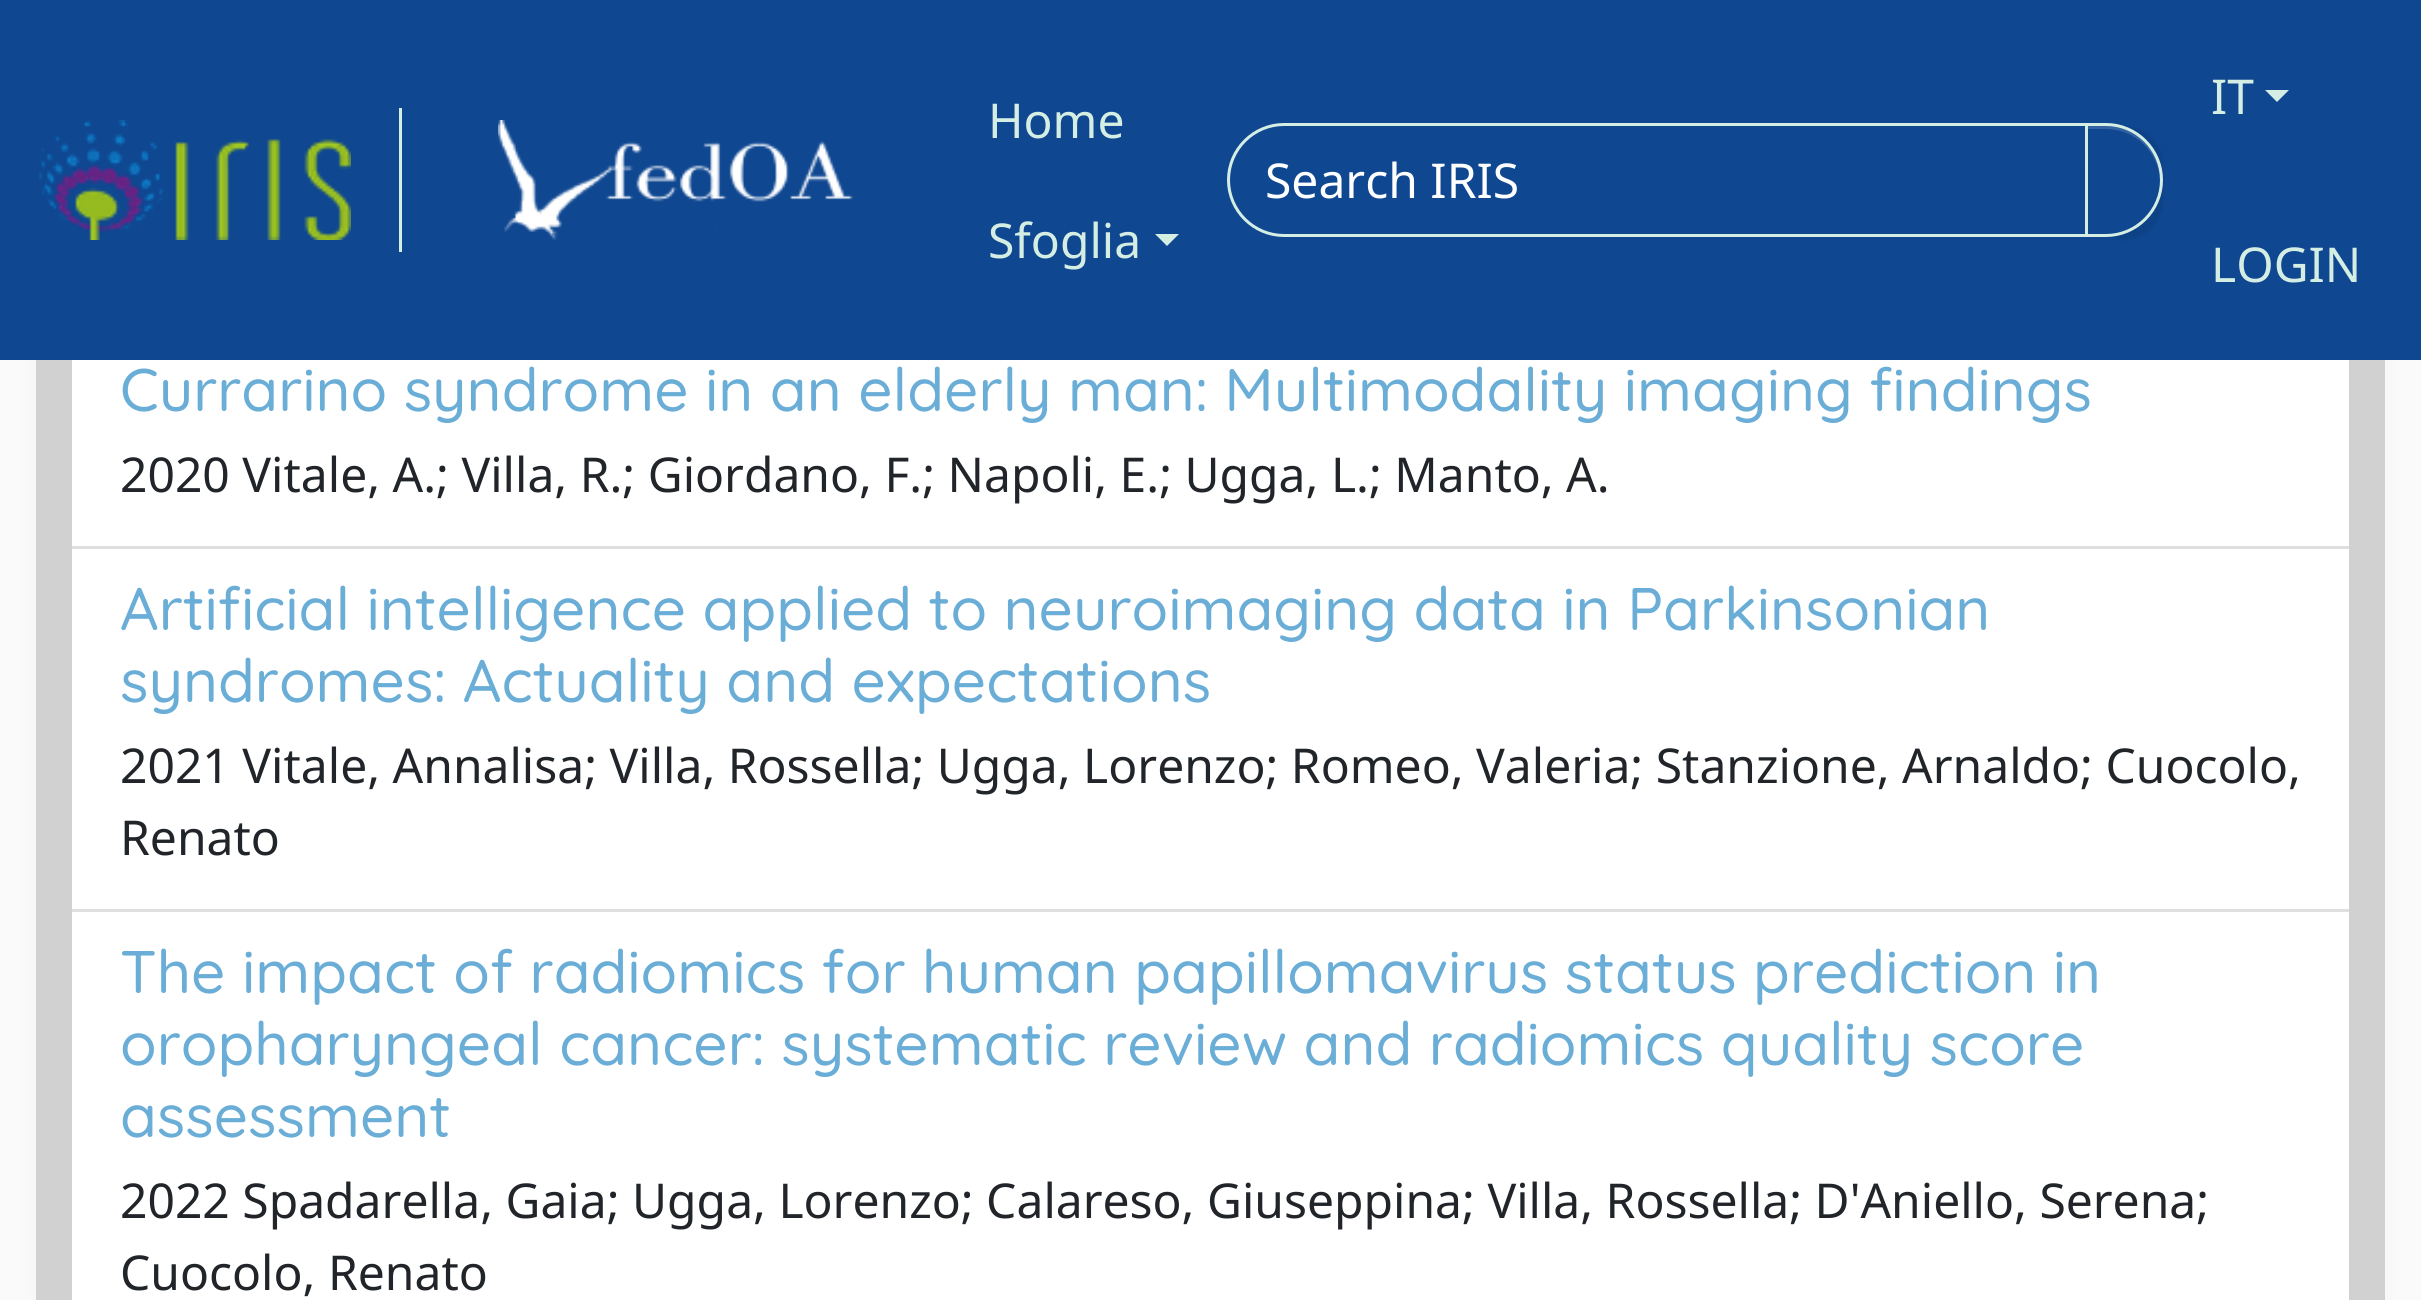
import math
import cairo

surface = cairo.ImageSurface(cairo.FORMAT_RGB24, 2421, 1300)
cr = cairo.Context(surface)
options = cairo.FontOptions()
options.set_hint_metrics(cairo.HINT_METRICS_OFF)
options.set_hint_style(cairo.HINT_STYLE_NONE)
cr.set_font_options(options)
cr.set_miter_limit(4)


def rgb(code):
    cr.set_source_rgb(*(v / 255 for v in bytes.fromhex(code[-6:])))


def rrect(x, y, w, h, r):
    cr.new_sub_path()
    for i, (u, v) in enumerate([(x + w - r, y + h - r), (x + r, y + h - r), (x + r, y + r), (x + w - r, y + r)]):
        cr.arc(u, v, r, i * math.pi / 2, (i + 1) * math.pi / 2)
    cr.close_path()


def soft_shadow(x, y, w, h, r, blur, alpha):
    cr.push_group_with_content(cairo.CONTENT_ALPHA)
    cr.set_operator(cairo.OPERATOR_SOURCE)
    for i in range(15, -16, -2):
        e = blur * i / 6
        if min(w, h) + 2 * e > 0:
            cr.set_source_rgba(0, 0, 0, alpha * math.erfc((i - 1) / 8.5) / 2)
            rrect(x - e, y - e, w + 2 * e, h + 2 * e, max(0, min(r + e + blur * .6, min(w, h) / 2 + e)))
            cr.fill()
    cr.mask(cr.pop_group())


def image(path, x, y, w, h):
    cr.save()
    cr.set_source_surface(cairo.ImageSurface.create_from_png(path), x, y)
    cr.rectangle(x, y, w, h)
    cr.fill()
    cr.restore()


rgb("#fbfafa")
cr.paint()
rgb("#eeeeee")
soft_shadow(42, 312, 2337, 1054, 39, 9, 1)
rgb("#ffffff")
cr.rectangle(36, 360, 2349, 940)
cr.fill()
cr.rectangle(54, 312, 2313, 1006)
cr.set_source_rgba(0, 0, 0, 0.18)
cr.set_line_width(36)
cr.stroke()
rgb("#0f4791")
cr.rectangle(0, 0, 2421, 360)
cr.fill()
rgb("#d5eee4")
cr.rectangle(399, 108, 3, 144)
cr.fill()
image("img/1.png", 36, 120, 315, 120)
image("img/2.png", 498, 120, 355, 120)
cr.new_path()
cr.move_to(1155, 234)
cr.line_to(1179, 234)
cr.line_to(1167, 246)
cr.close_path()
cr.fill()
cr.new_path()
cr.move_to(1284, 124.5)
cr.line_to(2086.5, 124.5)
cr.line_to(2086.5, 235.5)
cr.line_to(1284, 235.5)
cr.curve_to(1253.5, 235.5, 1228.5, 210.5, 1228.5, 180)
cr.curve_to(1228.5, 149.5, 1253.5, 124.5, 1284, 124.5)
cr.close_path()
cr.set_line_width(3)
cr.stroke()
rgb("#000000")
soft_shadow(2085, 126, 78, 114, 57, 1.5, 0.07)
rgb("#0f4791")
cr.new_path()
cr.move_to(2085, 123)
cr.line_to(2106, 123)
cr.curve_to(2137.5, 123, 2163, 148.5, 2163, 180)
cr.curve_to(2163, 211.5, 2137.5, 237, 2106, 237)
cr.line_to(2085, 237)
cr.close_path()
cr.fill()
rgb("#3363a2")
cr.new_path()
cr.move_to(2088, 129)
cr.line_to(2106, 129)
cr.curve_to(2135, 129, 2159, 152, 2160, 181)
cr.curve_to(2161, 156, 2142, 132, 2117, 127)
cr.curve_to(2108, 125, 2097, 126, 2088, 126)
cr.close_path()
cr.fill()
cr.new_path()
cr.move_to(2086.5, 124.5)
cr.line_to(2106, 124.5)
cr.curve_to(2136.5, 124.5, 2161.5, 149.5, 2161.5, 180)
cr.curve_to(2161.5, 210.5, 2136.5, 235.5, 2106, 235.5)
cr.line_to(2086.5, 235.5)
cr.close_path()
rgb("#d5eee4")
cr.stroke()
cr.new_path()
cr.move_to(2265, 90)
cr.line_to(2289, 90)
cr.line_to(2277, 102)
cr.close_path()
cr.fill()
rgb("#dfdfdf")
cr.rectangle(72, 546, 2277, 3)
cr.fill()
cr.rectangle(72, 909, 2277, 3)
cr.fill()
cr.select_font_face("Noto Sans")
cr.set_font_size(48)
rgb("#d5eee4")
cr.move_to(988, 138)
cr.show_text("Home")
cr.move_to(988, 258)
cr.show_text("Sfoglia")
rgb("#ffffff")
cr.move_to(1265, 198)
cr.show_text("Search IRIS")
rgb("#d5eee4")
cr.move_to(2211, 114)
cr.show_text("IT")
cr.move_to(2211, 282)
cr.show_text("LOGIN")
cr.select_font_face("Quicksand Medium")
cr.set_font_size(60)
rgb("#6aadd7")
cr.move_to(120, 411)
cr.show_text("Currarino syndrome in an elderly man: Multimodality imaging findings")
cr.select_font_face("Noto Sans")
cr.set_font_size(48)
rgb("#212529")
cr.move_to(120, 492)
cr.show_text("2020 Vitale, A.; Villa, R.; Giordano, F.; Napoli, E.; Ugga, L.; Manto, A.")
cr.select_font_face("Quicksand Medium")
cr.set_font_size(60)
rgb("#6aadd7")
cr.move_to(120, 630)
cr.show_text("Artificial intelligence applied to neuroimaging data in Parkinsonian")
cr.move_to(120, 702)
cr.show_text("syndromes: Actuality and expectations")
cr.select_font_face("Noto Sans")
cr.set_font_size(48)
rgb("#212529")
cr.move_to(120, 783)
cr.show_text("2021 Vitale, Annalisa; Villa, Rossella; Ugga, Lorenzo; Romeo, Valeria; Stanzione, Arnaldo; Cuocolo,")
cr.move_to(120, 855)
cr.show_text("Renato")
cr.select_font_face("Quicksand Medium")
cr.set_font_size(60)
rgb("#6aadd7")
for x, y, s in [
    (120, 993, "The impact of radiomics for human papillomavirus status prediction in"),
    (120, 1065, "oropharyngeal cancer: systematic review and radiomics quality score"),
    (120, 1137, "assessment"),
]:
    cr.move_to(x, y)
    cr.show_text(s)
cr.select_font_face("Noto Sans")
cr.set_font_size(48)
rgb("#212529")
cr.move_to(120, 1218)
cr.show_text("2022 Spadarella, Gaia; Ugga, Lorenzo; Calareso, Giuseppina; Villa, Rossella; D'Aniello, Serena;")
cr.move_to(120, 1290)
cr.show_text("Cuocolo, Renato")
surface.write_to_png("page.png")
